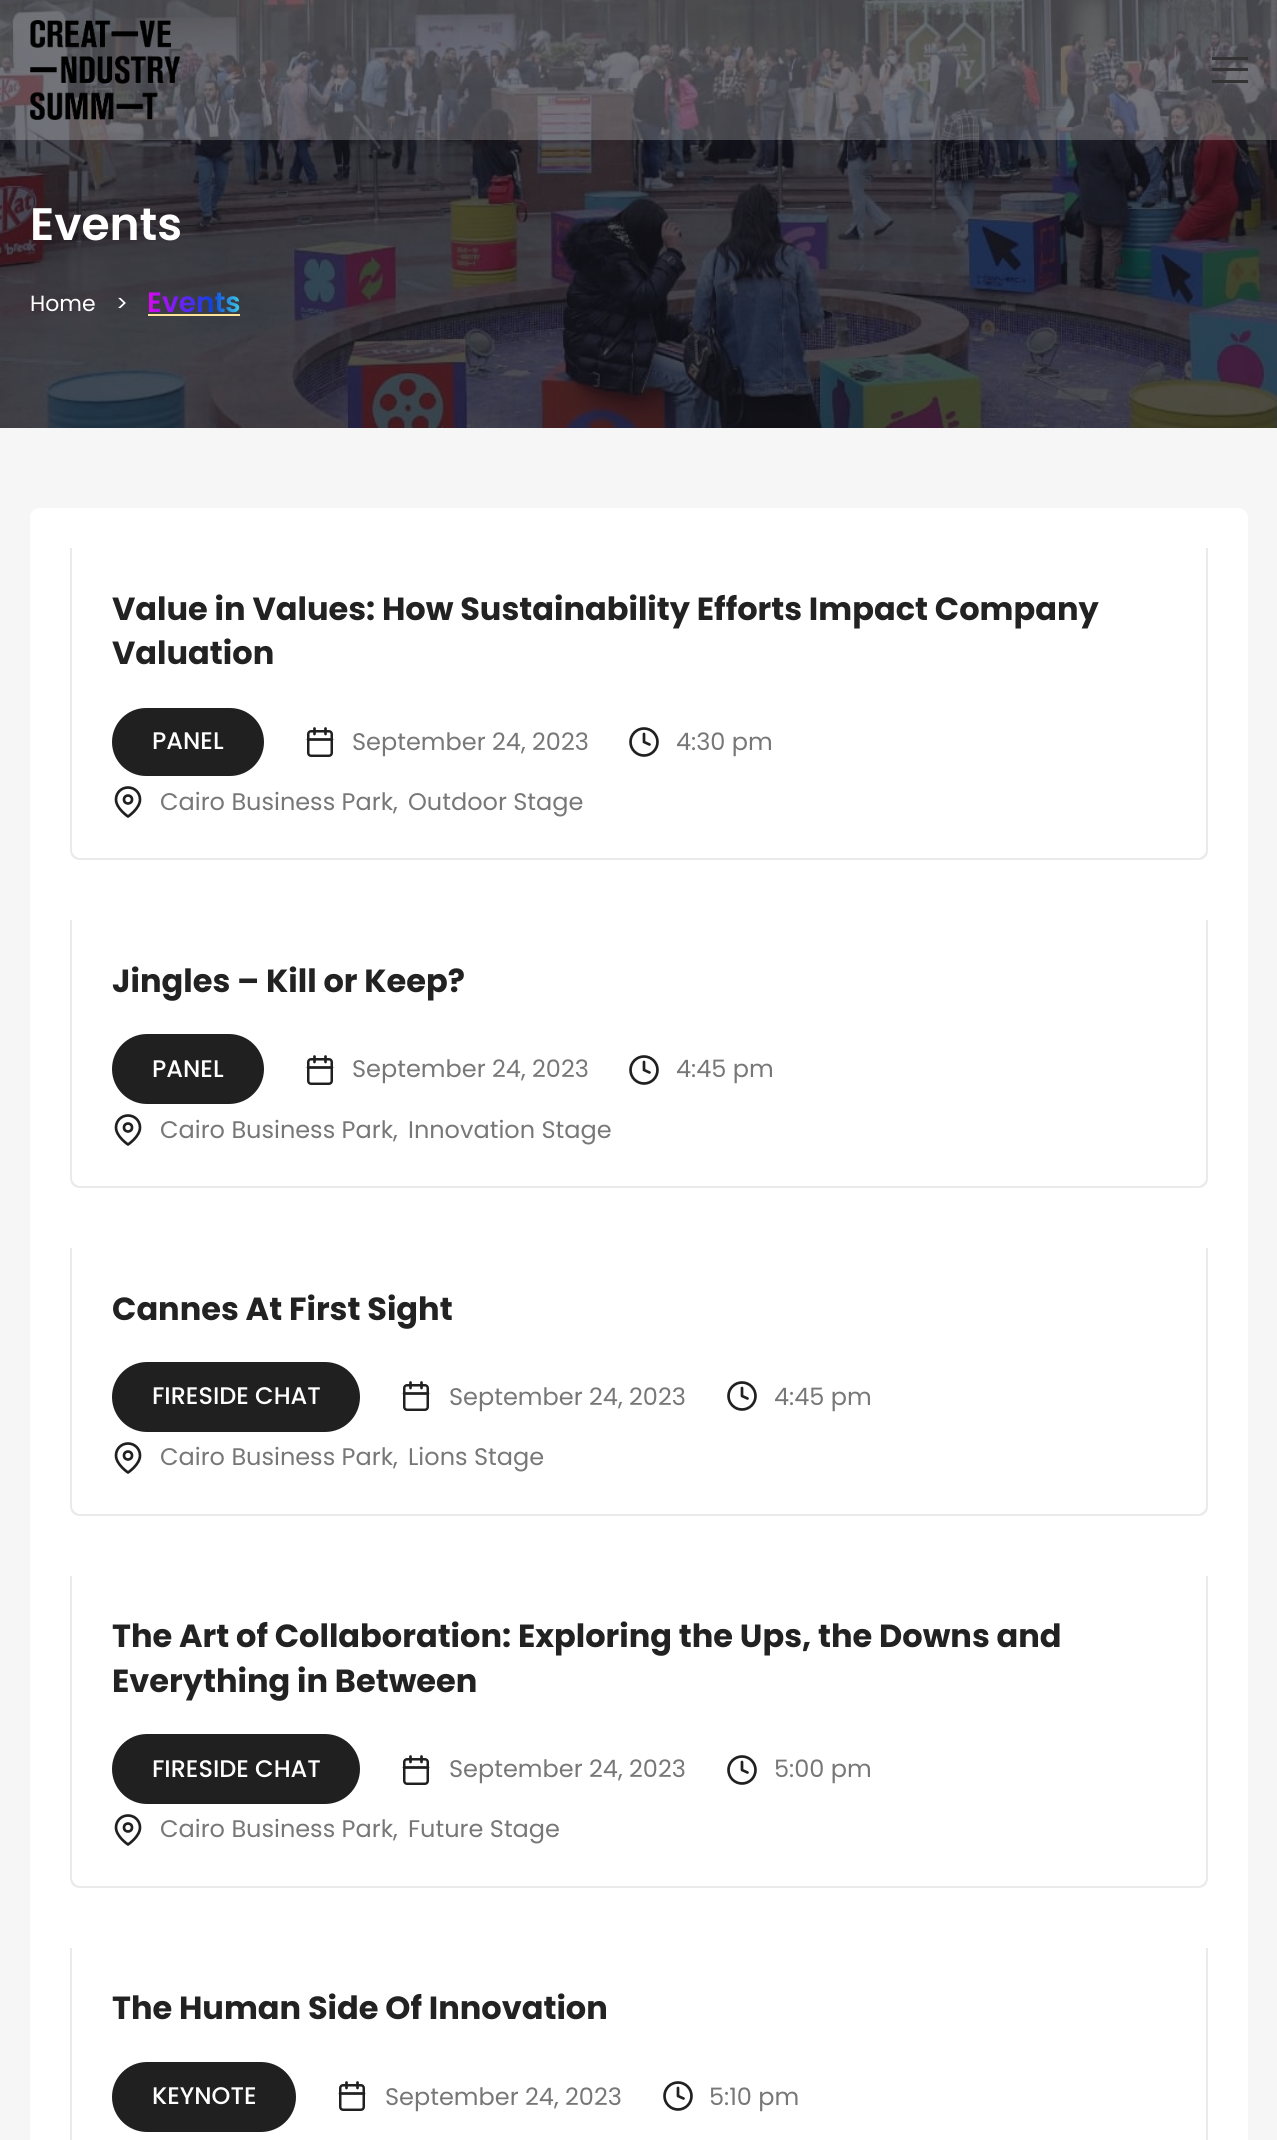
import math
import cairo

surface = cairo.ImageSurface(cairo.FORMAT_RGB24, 1277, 2140)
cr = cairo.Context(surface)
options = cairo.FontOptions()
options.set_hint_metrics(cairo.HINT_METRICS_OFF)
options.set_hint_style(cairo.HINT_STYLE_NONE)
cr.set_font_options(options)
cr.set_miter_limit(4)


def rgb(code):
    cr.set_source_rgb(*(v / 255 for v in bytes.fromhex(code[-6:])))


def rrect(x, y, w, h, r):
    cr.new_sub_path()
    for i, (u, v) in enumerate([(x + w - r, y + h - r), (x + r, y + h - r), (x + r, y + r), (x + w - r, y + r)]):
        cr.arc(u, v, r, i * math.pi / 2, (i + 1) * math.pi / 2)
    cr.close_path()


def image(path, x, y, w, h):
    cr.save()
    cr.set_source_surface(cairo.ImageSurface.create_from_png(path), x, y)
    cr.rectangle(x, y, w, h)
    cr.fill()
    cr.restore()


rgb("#f6f6f6")
cr.paint()
rgb("#121219")
cr.rectangle(0, 0, 1277, 428)
cr.fill()
image("img/2.png", 0, 0, 1277, 428)
cr.set_source_rgba(1, 1, 1, 0.22)
cr.rectangle(0, 0, 1277, 140)
cr.fill()
image("img/1.png", 30, 20, 150, 100)
for x, y, w, h, color in [
    (1212, 57, 36, 3, "#333333"),
    (1212, 68, 36, 3, "#333333"),
    (1212, 80, 36, 3, "#333333"),
    (148, 314, 92, 2, "#ffe39b"),
]:
    rgb(color)
    cr.rectangle(x, y, w, h)
    cr.fill()
rgb("#ffffff")
rrect(30, 508, 1218, 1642, 10)
cr.fill()
rgb("#eaeaea")
cr.set_fill_rule(cairo.FILL_RULE_EVEN_ODD)
cr.new_path()
cr.move_to(70, 548)
cr.line_to(1208, 548)
cr.line_to(1208, 850)
cr.curve_to(1208, 856, 1204, 860, 1198, 860)
cr.line_to(80, 860)
cr.curve_to(74, 860, 70, 856, 70, 850)
cr.close_path()
cr.move_to(72, 548)
cr.line_to(1206, 548)
cr.line_to(1206, 850)
cr.curve_to(1206, 854, 1202, 858, 1198, 858)
cr.line_to(80, 858)
cr.curve_to(76, 858, 72, 854, 72, 850)
cr.close_path()
cr.fill()
rgb("#212020")
rrect(112, 708, 152, 68, 34)
cr.fill()
rrect(308.25, 731.25, 23.5, 24.5, 2.75)
cr.set_line_width(2.5)
cr.stroke()
cr.new_path()
cr.move_to(325.5, 728.5)
cr.line_to(325.5, 734)
cr.move_to(314.5, 728.5)
cr.line_to(314.5, 734)
cr.move_to(308, 739.5)
cr.line_to(332, 739.5)
cr.set_line_width(2.7)
cr.set_line_cap(cairo.LINE_CAP_ROUND)
cr.set_line_join(cairo.LINE_JOIN_ROUND)
cr.stroke()
cr.arc(644, 742, 13.5, 0, 2 * math.pi)
cr.set_line_cap(cairo.LINE_CAP_BUTT)
cr.set_line_join(cairo.LINE_JOIN_MITER)
cr.stroke()
cr.new_path()
cr.move_to(644, 734)
cr.line_to(644, 742)
cr.line_to(649.5, 744.5)
cr.set_line_cap(cairo.LINE_CAP_ROUND)
cr.set_line_join(cairo.LINE_JOIN_ROUND)
cr.stroke()
cr.new_path()
cr.move_to(140, 799.5)
cr.curve_to(140, 808.5, 128, 816.5, 128, 816.5)
cr.curve_to(128, 816.5, 116, 808.5, 116, 799.5)
cr.curve_to(116, 792.5, 121.5, 787.5, 128, 787.5)
cr.curve_to(134.5, 787.5, 140, 792.5, 140, 799.5)
cr.close_path()
cr.stroke()
cr.arc(128, 799.5, 4, 0, 2 * math.pi)
cr.set_line_cap(cairo.LINE_CAP_BUTT)
cr.set_line_join(cairo.LINE_JOIN_MITER)
cr.stroke()
rgb("#eaeaea")
cr.new_path()
cr.move_to(70, 920)
cr.line_to(1208, 920)
cr.line_to(1208, 1178)
cr.curve_to(1208, 1184, 1204, 1188, 1198, 1188)
cr.line_to(80, 1188)
cr.curve_to(74, 1188, 70, 1184, 70, 1178)
cr.close_path()
cr.move_to(72, 920)
cr.line_to(1206, 920)
cr.line_to(1206, 1178)
cr.curve_to(1206, 1182, 1202, 1186, 1198, 1186)
cr.line_to(80, 1186)
cr.curve_to(76, 1186, 72, 1182, 72, 1178)
cr.close_path()
cr.fill()
rgb("#212020")
rrect(112, 1034, 152, 70, 35)
cr.fill()
rrect(308.25, 1059.25, 23.5, 24.5, 2.75)
cr.set_line_width(2.5)
cr.stroke()
cr.new_path()
cr.move_to(325.5, 1056.5)
cr.line_to(325.5, 1062)
cr.move_to(314.5, 1056.5)
cr.line_to(314.5, 1062)
cr.move_to(308, 1067.5)
cr.line_to(332, 1067.5)
cr.set_line_width(2.7)
cr.set_line_cap(cairo.LINE_CAP_ROUND)
cr.set_line_join(cairo.LINE_JOIN_ROUND)
cr.stroke()
cr.arc(644, 1070, 13.5, 0, 2 * math.pi)
cr.set_line_cap(cairo.LINE_CAP_BUTT)
cr.set_line_join(cairo.LINE_JOIN_MITER)
cr.stroke()
cr.new_path()
cr.move_to(644, 1062)
cr.line_to(644, 1070)
cr.line_to(649.5, 1072.5)
cr.set_line_cap(cairo.LINE_CAP_ROUND)
cr.set_line_join(cairo.LINE_JOIN_ROUND)
cr.stroke()
cr.new_path()
cr.move_to(140, 1127.5)
cr.curve_to(140, 1136.5, 128, 1144.5, 128, 1144.5)
cr.curve_to(128, 1144.5, 116, 1136.5, 116, 1127.5)
cr.curve_to(116, 1120.5, 121.5, 1115.5, 128, 1115.5)
cr.curve_to(134.5, 1115.5, 140, 1120.5, 140, 1127.5)
cr.close_path()
cr.stroke()
cr.arc(128, 1127.5, 4, 0, 2 * math.pi)
cr.set_line_cap(cairo.LINE_CAP_BUTT)
cr.set_line_join(cairo.LINE_JOIN_MITER)
cr.stroke()
rgb("#eaeaea")
cr.new_path()
cr.move_to(70, 1248)
cr.line_to(1208, 1248)
cr.line_to(1208, 1506)
cr.curve_to(1208, 1512, 1204, 1516, 1198, 1516)
cr.line_to(80, 1516)
cr.curve_to(74, 1516, 70, 1512, 70, 1506)
cr.close_path()
cr.move_to(72, 1248)
cr.line_to(1206, 1248)
cr.line_to(1206, 1506)
cr.curve_to(1206, 1510, 1202, 1514, 1198, 1514)
cr.line_to(80, 1514)
cr.curve_to(76, 1514, 72, 1510, 72, 1506)
cr.close_path()
cr.fill()
rgb("#212020")
rrect(112, 1362, 248, 70, 35)
cr.fill()
rrect(404.25, 1385.25, 23.5, 24.5, 2.75)
cr.set_line_width(2.5)
cr.stroke()
cr.new_path()
cr.move_to(421.5, 1382.5)
cr.line_to(421.5, 1388)
cr.move_to(410.5, 1382.5)
cr.line_to(410.5, 1388)
cr.move_to(404, 1393.5)
cr.line_to(428, 1393.5)
cr.set_line_width(2.7)
cr.set_line_cap(cairo.LINE_CAP_ROUND)
cr.set_line_join(cairo.LINE_JOIN_ROUND)
cr.stroke()
cr.arc(742, 1396, 13.5, 0, 2 * math.pi)
cr.set_line_cap(cairo.LINE_CAP_BUTT)
cr.set_line_join(cairo.LINE_JOIN_MITER)
cr.stroke()
cr.new_path()
cr.move_to(742, 1388)
cr.line_to(742, 1396)
cr.line_to(747.5, 1398.5)
cr.set_line_cap(cairo.LINE_CAP_ROUND)
cr.set_line_join(cairo.LINE_JOIN_ROUND)
cr.stroke()
cr.new_path()
cr.move_to(140, 1455.5)
cr.curve_to(140, 1464.5, 128, 1472.5, 128, 1472.5)
cr.curve_to(128, 1472.5, 116, 1464.5, 116, 1455.5)
cr.curve_to(116, 1448.5, 121.5, 1443.5, 128, 1443.5)
cr.curve_to(134.5, 1443.5, 140, 1448.5, 140, 1455.5)
cr.close_path()
cr.stroke()
cr.arc(128, 1455.5, 4, 0, 2 * math.pi)
cr.set_line_cap(cairo.LINE_CAP_BUTT)
cr.set_line_join(cairo.LINE_JOIN_MITER)
cr.stroke()
rgb("#eaeaea")
cr.new_path()
cr.move_to(70, 1576)
cr.line_to(1208, 1576)
cr.line_to(1208, 1878)
cr.curve_to(1208, 1884, 1204, 1888, 1198, 1888)
cr.line_to(80, 1888)
cr.curve_to(74, 1888, 70, 1884, 70, 1878)
cr.close_path()
cr.move_to(72, 1576)
cr.line_to(1206, 1576)
cr.line_to(1206, 1878)
cr.curve_to(1206, 1882, 1202, 1886, 1198, 1886)
cr.line_to(80, 1886)
cr.curve_to(76, 1886, 72, 1882, 72, 1878)
cr.close_path()
cr.fill()
rgb("#212020")
rrect(112, 1734, 248, 70, 35)
cr.fill()
rrect(404.25, 1759.25, 23.5, 24.5, 2.75)
cr.set_line_width(2.5)
cr.stroke()
cr.new_path()
cr.move_to(421.5, 1756.5)
cr.line_to(421.5, 1762)
cr.move_to(410.5, 1756.5)
cr.line_to(410.5, 1762)
cr.move_to(404, 1767.5)
cr.line_to(428, 1767.5)
cr.set_line_width(2.7)
cr.set_line_cap(cairo.LINE_CAP_ROUND)
cr.set_line_join(cairo.LINE_JOIN_ROUND)
cr.stroke()
cr.arc(742, 1770, 13.5, 0, 2 * math.pi)
cr.set_line_cap(cairo.LINE_CAP_BUTT)
cr.set_line_join(cairo.LINE_JOIN_MITER)
cr.stroke()
cr.new_path()
cr.move_to(742, 1762)
cr.line_to(742, 1770)
cr.line_to(747.5, 1772.5)
cr.set_line_cap(cairo.LINE_CAP_ROUND)
cr.set_line_join(cairo.LINE_JOIN_ROUND)
cr.stroke()
cr.new_path()
cr.move_to(140, 1827.5)
cr.curve_to(140, 1836.5, 128, 1844.5, 128, 1844.5)
cr.curve_to(128, 1844.5, 116, 1836.5, 116, 1827.5)
cr.curve_to(116, 1820.5, 121.5, 1815.5, 128, 1815.5)
cr.curve_to(134.5, 1815.5, 140, 1820.5, 140, 1827.5)
cr.close_path()
cr.stroke()
cr.arc(128, 1827.5, 4, 0, 2 * math.pi)
cr.set_line_cap(cairo.LINE_CAP_BUTT)
cr.set_line_join(cairo.LINE_JOIN_MITER)
cr.stroke()
rgb("#eaeaea")
cr.new_path()
cr.move_to(70, 1948)
cr.line_to(1208, 1948)
cr.line_to(1208, 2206)
cr.curve_to(1208, 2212, 1204, 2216, 1198, 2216)
cr.line_to(80, 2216)
cr.curve_to(74, 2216, 70, 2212, 70, 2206)
cr.close_path()
cr.move_to(72, 1948)
cr.line_to(1206, 1948)
cr.line_to(1206, 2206)
cr.curve_to(1206, 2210, 1202, 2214, 1198, 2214)
cr.line_to(80, 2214)
cr.curve_to(76, 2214, 72, 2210, 72, 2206)
cr.close_path()
cr.fill()
rgb("#212020")
rrect(112, 2062, 184, 70, 35)
cr.fill()
rrect(340.25, 2085.25, 23.5, 24.5, 2.75)
cr.set_line_width(2.5)
cr.stroke()
cr.new_path()
cr.move_to(357.5, 2082.5)
cr.line_to(357.5, 2088)
cr.move_to(346.5, 2082.5)
cr.line_to(346.5, 2088)
cr.move_to(340, 2093.5)
cr.line_to(364, 2093.5)
cr.set_line_width(2.7)
cr.set_line_cap(cairo.LINE_CAP_ROUND)
cr.set_line_join(cairo.LINE_JOIN_ROUND)
cr.stroke()
cr.arc(678, 2096, 13.5, 0, 2 * math.pi)
cr.set_line_cap(cairo.LINE_CAP_BUTT)
cr.set_line_join(cairo.LINE_JOIN_MITER)
cr.stroke()
cr.new_path()
cr.move_to(678, 2088)
cr.line_to(678, 2096)
cr.line_to(683.5, 2098.5)
cr.set_line_cap(cairo.LINE_CAP_ROUND)
cr.set_line_join(cairo.LINE_JOIN_ROUND)
cr.stroke()
cr.select_font_face("Poppins SemiBold")
cr.set_font_size(45.5)
rgb("#ffffff")
cr.move_to(30, 240)
cr.show_text("Events")
cr.select_font_face("Poppins")
cr.set_font_size(22)
cr.move_to(30, 311)
cr.show_text("Home")
cr.move_to(116, 311)
cr.show_text(">")
cr.select_font_face("Poppins SemiBold")
cr.set_font_size(28)
gradient = cairo.LinearGradient(137, 304, 251, 304)
gradient.add_color_stop_rgba(0, 1, 0, 0.906, 1)
gradient.add_color_stop_rgba(0.33, 0.49, 0.114, 0.969, 1)
gradient.add_color_stop_rgba(0.66, 0.051, 0.267, 0.882, 1)
gradient.add_color_stop_rgba(1, 0.31, 1, 0.902, 1)
cr.set_source(gradient)
cr.move_to(147, 312)
cr.show_text("Events")
cr.select_font_face("Poppins", cairo.FONT_SLANT_NORMAL, cairo.FONT_WEIGHT_BOLD)
cr.set_font_size(32)
rgb("#222222")
cr.move_to(112, 620)
cr.show_text("Value in Values: How Sustainability Efforts Impact Company")
cr.move_to(112, 664)
cr.show_text("Valuation")
cr.select_font_face("Poppins Medium")
cr.set_font_size(24)
rgb("#ffffff")
cr.move_to(152, 749)
cr.show_text("PANEL")
cr.select_font_face("Poppins")
rgb("#777777")
for x, y, s in [
    (352, 750, "September 24, 2023"),
    (676, 750, "4:30 pm"),
    (160, 810, "Cairo Business Park,"),
    (408, 810, "Outdoor Stage"),
]:
    cr.move_to(x, y)
    cr.show_text(s)
cr.select_font_face("Poppins", cairo.FONT_SLANT_NORMAL, cairo.FONT_WEIGHT_BOLD)
cr.set_font_size(32)
rgb("#222222")
cr.move_to(112, 992)
cr.show_text("Jingles – Kill or Keep?")
cr.select_font_face("Poppins Medium")
cr.set_font_size(24)
rgb("#ffffff")
cr.move_to(152, 1077)
cr.show_text("PANEL")
cr.select_font_face("Poppins")
rgb("#777777")
for x, y, s in [
    (352, 1077, "September 24, 2023"),
    (676, 1077, "4:45 pm"),
    (160, 1138, "Cairo Business Park,"),
    (408, 1138, "Innovation Stage"),
]:
    cr.move_to(x, y)
    cr.show_text(s)
cr.select_font_face("Poppins", cairo.FONT_SLANT_NORMAL, cairo.FONT_WEIGHT_BOLD)
cr.set_font_size(32)
rgb("#222222")
cr.move_to(112, 1320)
cr.show_text("Cannes At First Sight")
cr.select_font_face("Poppins Medium")
cr.set_font_size(24)
rgb("#ffffff")
cr.move_to(152, 1404)
cr.show_text("FIRESIDE CHAT")
cr.select_font_face("Poppins")
rgb("#777777")
for x, y, s in [
    (449, 1405, "September 24, 2023"),
    (774, 1405, "4:45 pm"),
    (160, 1465, "Cairo Business Park,"),
    (408, 1465, "Lions Stage"),
]:
    cr.move_to(x, y)
    cr.show_text(s)
cr.select_font_face("Poppins", cairo.FONT_SLANT_NORMAL, cairo.FONT_WEIGHT_BOLD)
cr.set_font_size(32)
rgb("#222222")
cr.move_to(112, 1647)
cr.show_text("The Art of Collaboration: Exploring the Ups, the Downs and")
cr.move_to(112, 1692)
cr.show_text("Everything in Between")
cr.select_font_face("Poppins Medium")
cr.set_font_size(24)
rgb("#ffffff")
cr.move_to(152, 1777)
cr.show_text("FIRESIDE CHAT")
cr.select_font_face("Poppins")
rgb("#777777")
for x, y, s in [
    (449, 1777, "September 24, 2023"),
    (774, 1777, "5:00 pm"),
    (160, 1837, "Cairo Business Park,"),
    (408, 1837, "Future Stage"),
]:
    cr.move_to(x, y)
    cr.show_text(s)
cr.select_font_face("Poppins", cairo.FONT_SLANT_NORMAL, cairo.FONT_WEIGHT_BOLD)
cr.set_font_size(32)
rgb("#222222")
cr.move_to(112, 2019)
cr.show_text("The Human Side Of Innovation")
cr.select_font_face("Poppins Medium")
cr.set_font_size(24)
rgb("#ffffff")
cr.move_to(152, 2104)
cr.show_text("KEYNOTE")
cr.select_font_face("Poppins")
rgb("#777777")
cr.move_to(385, 2105)
cr.show_text("September 24, 2023")
cr.move_to(709, 2105)
cr.show_text("5:10 pm")
surface.write_to_png("page.png")
